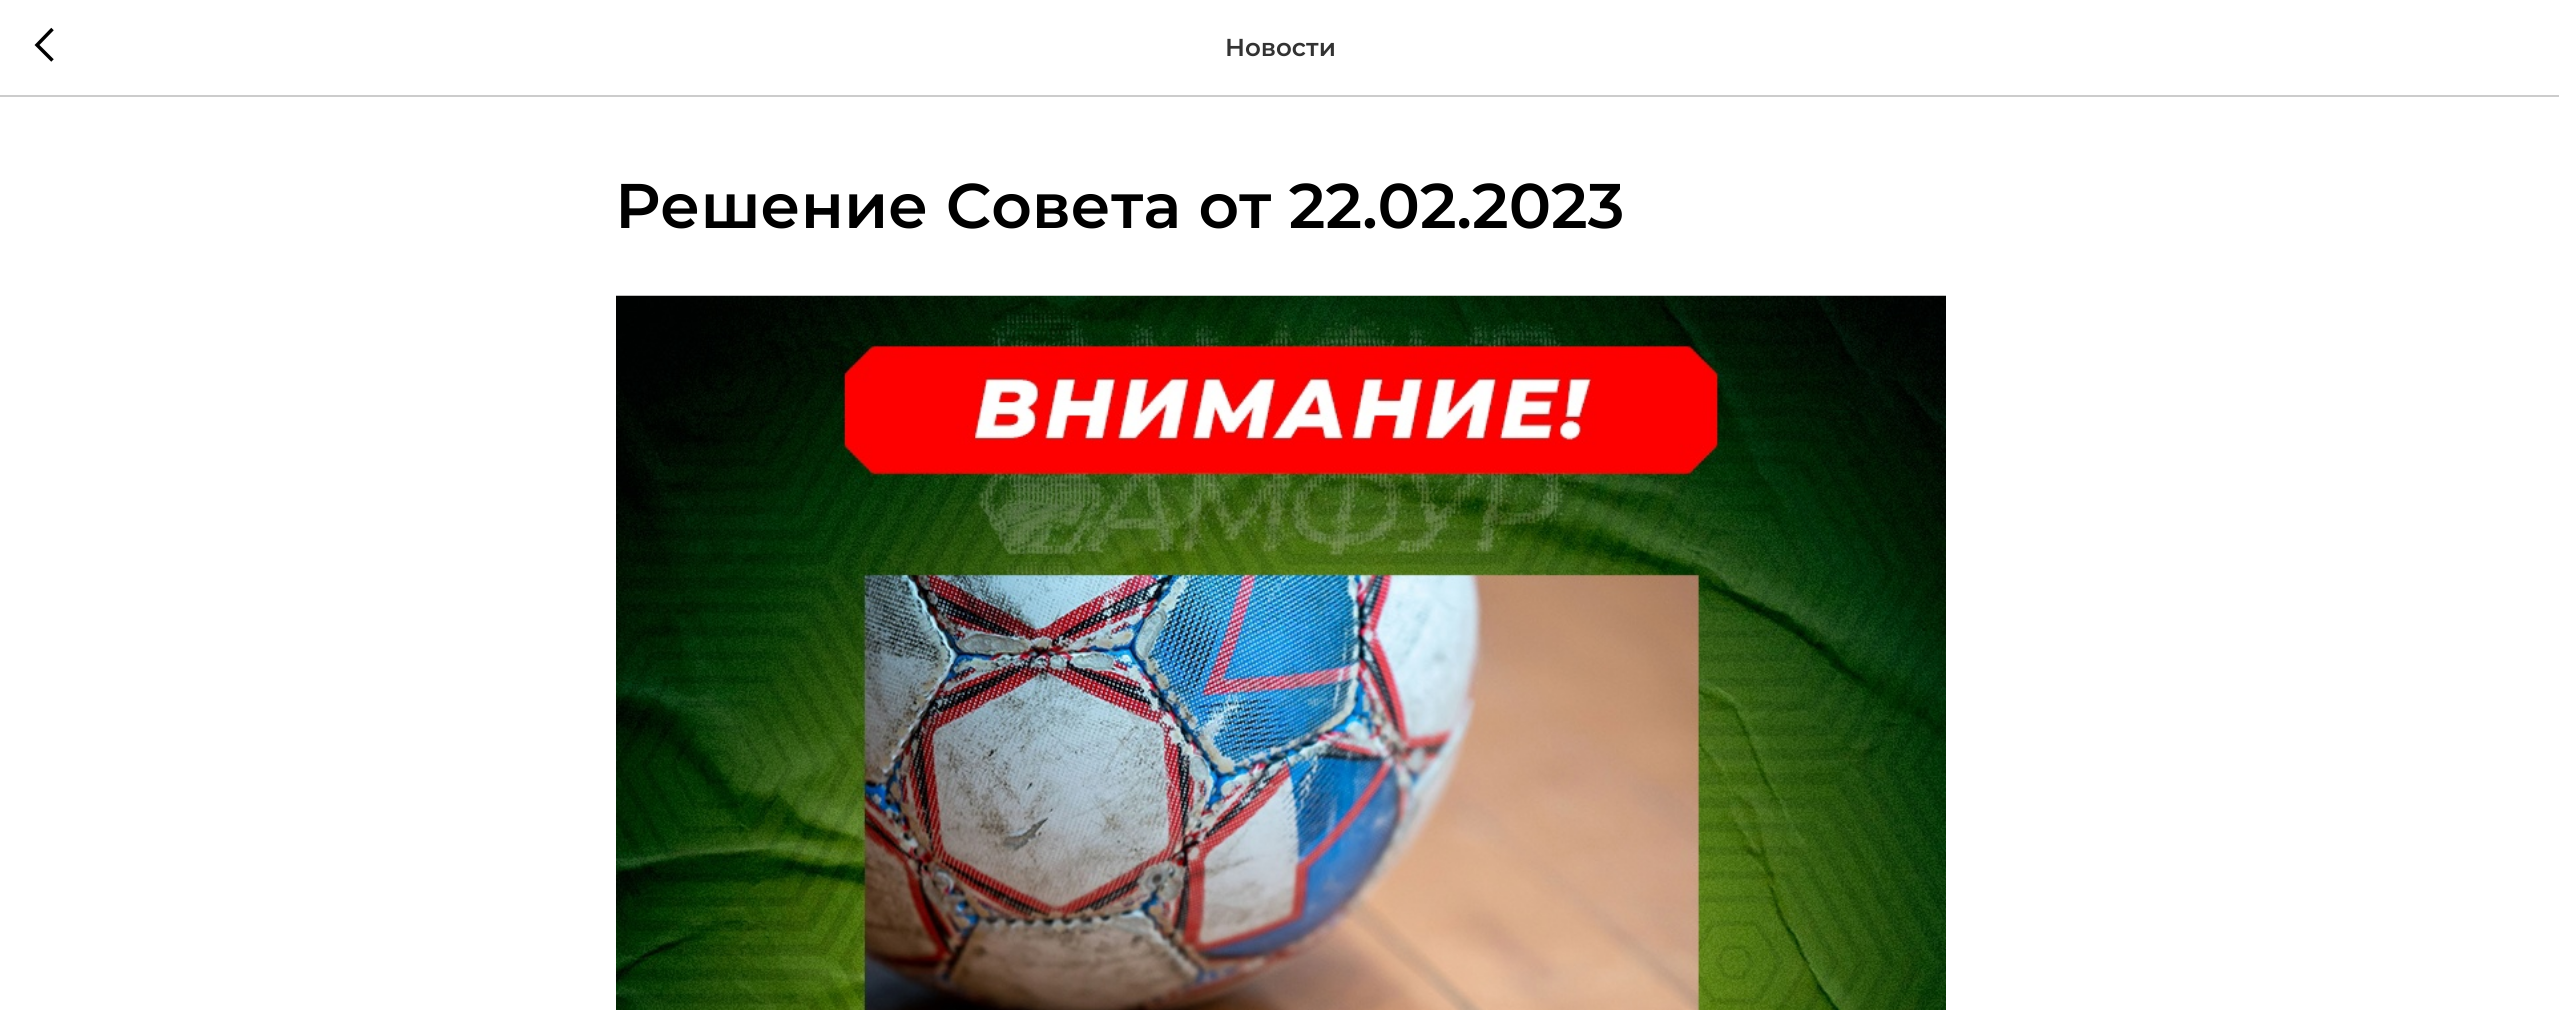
import math
import cairo

surface = cairo.ImageSurface(cairo.FORMAT_RGB24, 2559, 1010)
cr = cairo.Context(surface)
options = cairo.FontOptions()
options.set_hint_metrics(cairo.HINT_METRICS_OFF)
options.set_hint_style(cairo.HINT_STYLE_NONE)
cr.set_font_options(options)
cr.set_miter_limit(4)


def rgb(code):
    cr.set_source_rgb(*(v / 255 for v in bytes.fromhex(code[-6:])))


def image(path, x, y, w, h):
    cr.save()
    cr.set_source_surface(cairo.ImageSurface.create_from_png(path), x, y)
    cr.rectangle(x, y, w, h)
    cr.fill()
    cr.restore()


rgb("#ffffff")
cr.paint()
rgb("#cccccc")
cr.rectangle(0, 95, 2559, 2)
cr.fill()
cr.new_path()
cr.move_to(52.5, 60.5)
cr.line_to(37, 45)
cr.line_to(52.5, 29)
rgb("#000000")
cr.set_line_width(3.5)
cr.stroke()
image("img/1.png", 616, 295, 1330, 715)
cr.select_font_face("Montserrat SemiBold")
cr.set_font_size(24.5)
rgb("#333333")
cr.move_to(1225, 56)
cr.show_text("Новости")
cr.set_font_size(63)
rgb("#000000")
cr.move_to(615, 228)
cr.show_text("Решение Совета от 22.02.2023")
surface.write_to_png("page.png")
